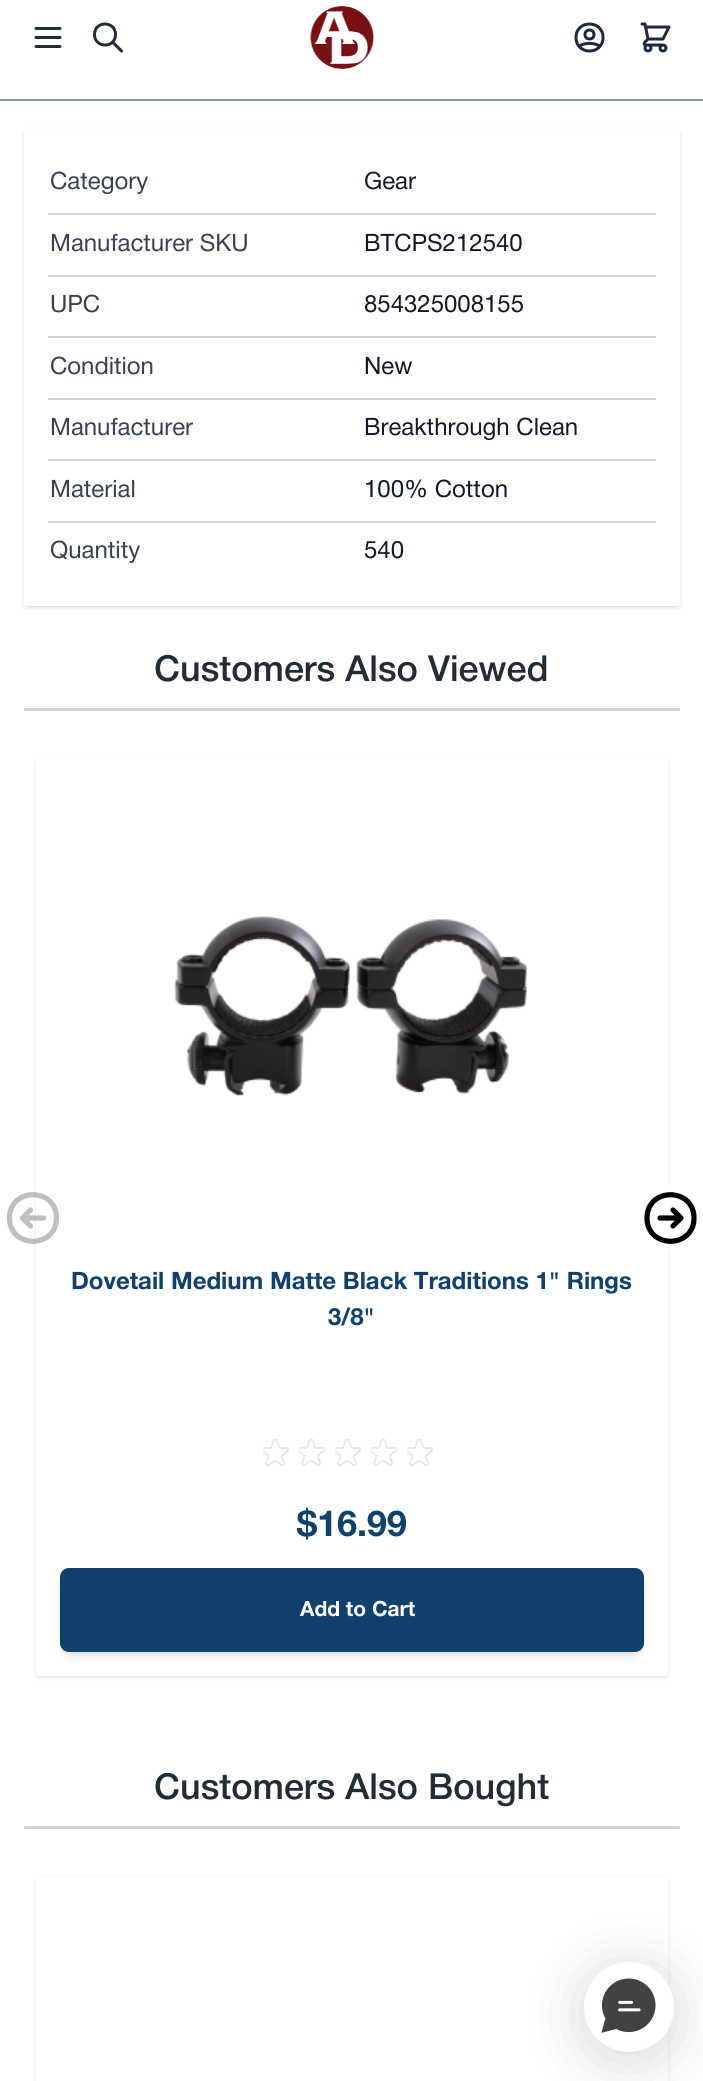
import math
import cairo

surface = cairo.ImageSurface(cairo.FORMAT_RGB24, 703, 2081)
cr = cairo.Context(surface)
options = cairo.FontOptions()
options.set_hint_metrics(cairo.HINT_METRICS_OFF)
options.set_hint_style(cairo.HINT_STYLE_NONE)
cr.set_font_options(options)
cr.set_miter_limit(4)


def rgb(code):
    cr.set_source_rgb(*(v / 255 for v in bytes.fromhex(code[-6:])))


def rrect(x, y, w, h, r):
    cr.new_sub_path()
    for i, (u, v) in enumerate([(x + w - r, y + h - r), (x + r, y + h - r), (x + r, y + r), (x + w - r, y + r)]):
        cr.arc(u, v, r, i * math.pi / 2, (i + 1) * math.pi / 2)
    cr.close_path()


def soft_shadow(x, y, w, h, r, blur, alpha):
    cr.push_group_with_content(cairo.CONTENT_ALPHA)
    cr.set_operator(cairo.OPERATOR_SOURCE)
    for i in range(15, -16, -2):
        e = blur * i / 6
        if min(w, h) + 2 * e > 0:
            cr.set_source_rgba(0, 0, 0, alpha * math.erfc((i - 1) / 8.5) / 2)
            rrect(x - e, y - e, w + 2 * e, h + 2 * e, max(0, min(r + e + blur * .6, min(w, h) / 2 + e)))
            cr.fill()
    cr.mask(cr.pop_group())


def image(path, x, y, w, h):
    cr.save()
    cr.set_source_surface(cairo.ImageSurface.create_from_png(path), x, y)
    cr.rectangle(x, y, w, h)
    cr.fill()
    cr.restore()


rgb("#ffffff")
cr.paint()
rgb("#8a98a4")
cr.rectangle(0, 99, 703, 2)
cr.fill()
cr.new_path()
cr.move_to(36, 28.5)
cr.line_to(60, 28.5)
cr.move_to(36, 37.5)
cr.line_to(60, 37.5)
cr.move_to(36, 46.5)
cr.line_to(60, 46.5)
rgb("#212c36")
cr.set_line_width(3)
cr.set_line_cap(cairo.LINE_CAP_ROUND)
cr.set_line_join(cairo.LINE_JOIN_ROUND)
cr.stroke()
cr.new_path()
cr.move_to(121.5, 51)
cr.line_to(112.5, 42)
cr.move_to(115.5, 34.5)
cr.curve_to(115.5, 48.5, 94.5, 48.5, 94.5, 34.5)
cr.curve_to(94.5, 20.5, 115.5, 20.5, 115.5, 34.5)
cr.close_path()
cr.stroke()
image("img/1.png", 310, 6, 64, 63)
cr.new_path()
cr.move_to(579, 46)
cr.curve_to(585.5, 42.5, 593.5, 42.5, 600, 46)
cr.move_to(594, 34.5)
cr.curve_to(594, 40.5, 585, 40.5, 585, 34.5)
cr.curve_to(585, 28.5, 594, 28.5, 594, 34.5)
cr.close_path()
cr.move_to(603, 37.5)
cr.curve_to(603, 55.5, 576, 55.5, 576, 37.5)
cr.curve_to(576, 19.5, 603, 19.5, 603, 37.5)
cr.close_path()
rgb("#1e293b")
cr.stroke()
image("img/2.png", 640, 22, 31, 31)
rgb("#000000")
soft_shadow(26, 132, 652, 474, 1.5, 1.5, 0.1)
soft_shadow(24, 131, 656, 477, 3, 2, 0.1)
rgb("#ffffff")
rrect(24, 129, 656, 477, 3)
cr.fill()
for x, y, w, h, color in [
    (48, 213, 608, 2, "#d1d5db"),
    (48, 275, 608, 2, "#d1d5db"),
    (48, 336, 608, 2, "#d1d5db"),
    (48, 398, 608, 2, "#d1d5db"),
    (48, 459, 608, 2, "#d1d5db"),
    (48, 521, 608, 2, "#d1d5db"),
    (24, 708, 656, 3, "#d1d5db"),
]:
    rgb(color)
    cr.rectangle(x, y, w, h)
    cr.fill()
rgb("#000000")
soft_shadow(38, 762, 628, 914, 1.5, 1.5, 0.1)
soft_shadow(36, 761, 632, 916, 3, 2, 0.1)
rgb("#ffffff")
rrect(36, 759, 632, 917, 3)
cr.fill()
cr.set_source_rgba(1, 1, 1, 0.25)
cr.arc(33, 1218, 33, 0, 2 * math.pi)
cr.fill()
cr.new_path()
cr.move_to(30.5, 1226)
cr.line_to(22.5, 1218)
cr.move_to(22.5, 1218)
cr.line_to(30.5, 1210)
cr.move_to(22.5, 1218)
cr.line_to(43.5, 1218)
cr.move_to(9.5, 1218)
cr.curve_to(9.5, 1187, 56.5, 1187, 56.5, 1218)
cr.curve_to(56.5, 1249, 9.5, 1249, 9.5, 1218)
cr.close_path()
cr.set_source_rgba(0, 0, 0, 0.25)
cr.set_line_width(5.2)
cr.stroke()
rgb("#ffffff")
cr.arc(671, 1218, 33, 0, 2 * math.pi)
cr.fill()
cr.new_path()
cr.move_to(673, 1210)
cr.line_to(681, 1218)
cr.move_to(681, 1218)
cr.line_to(673, 1226)
cr.move_to(681, 1218)
cr.line_to(660, 1218)
cr.move_to(694, 1218)
cr.curve_to(694, 1249, 647, 1249, 647, 1218)
cr.curve_to(647, 1187, 694, 1187, 694, 1218)
cr.close_path()
rgb("#000000")
cr.stroke()
image("img/3.png", 174, 916, 354, 180)
image("img/4.png", 263, 1438, 27, 28)
image("img/4.png", 299, 1438, 27, 28)
image("img/4.png", 335, 1438, 27, 28)
image("img/4.png", 371, 1438, 27, 28)
image("img/4.png", 407, 1438, 27, 28)
rgb("#000000")
soft_shadow(63, 1574, 578, 78, 6, 3, 0.1)
soft_shadow(62, 1575, 580, 81, 8, 4.5, 0.1)
rgb("#10406c")
rrect(60, 1568, 584, 84, 9)
cr.fill()
rgb("#d1d5db")
cr.rectangle(24, 1826, 656, 3)
cr.fill()
rgb("#000000")
soft_shadow(36, 1878, 632, 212, 3, 2, 0.1)
rgb("#ffffff")
rrect(36, 1877, 632, 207, 3)
cr.fill()
rgb("#000000")
soft_shadow(584, 1970, 90, 90, 45, 30, 0.16)
rgb("#ffffff")
cr.arc(629, 2007, 45, 0, 2 * math.pi)
cr.fill()
image("img/5.png", 601, 1978, 55, 55)
cr.select_font_face("Helvetica Neue")
cr.set_font_size(24)
rgb("#374151")
cr.move_to(50, 189)
cr.show_text("Category")
rgb("#111827")
cr.move_to(364, 189)
cr.show_text("Gear")
rgb("#374151")
cr.move_to(50, 251)
cr.show_text("Manufacturer SKU")
rgb("#111827")
cr.move_to(364, 251)
cr.show_text("BTCPS212540")
rgb("#374151")
cr.move_to(50, 312)
cr.show_text("UPC")
rgb("#111827")
cr.move_to(364, 312)
cr.show_text("854325008155")
rgb("#374151")
cr.move_to(50, 374)
cr.show_text("Condition")
rgb("#111827")
cr.move_to(364, 374)
cr.show_text("New")
rgb("#374151")
cr.move_to(50, 435)
cr.show_text("Manufacturer")
rgb("#111827")
cr.move_to(364, 435)
cr.show_text("Breakthrough Clean")
rgb("#374151")
cr.move_to(50, 497)
cr.show_text("Material")
rgb("#111827")
cr.move_to(364, 497)
cr.show_text("100% Cotton")
rgb("#374151")
cr.move_to(50, 558)
cr.show_text("Quantity")
rgb("#111827")
cr.move_to(364, 558)
cr.show_text("540")
cr.select_font_face("Helvetica Neue Medium")
cr.set_font_size(36)
rgb("#212c36")
cr.move_to(154, 681)
cr.show_text("Customers Also Viewed")
cr.select_font_face("Helvetica Neue", cairo.FONT_SLANT_NORMAL, cairo.FONT_WEIGHT_BOLD)
cr.set_font_size(24)
rgb("#10406c")
cr.move_to(71, 1289)
cr.show_text("Dovetail Medium Matte Black Traditions 1\" Rings")
cr.move_to(328, 1325)
cr.show_text("3/8\"")
cr.set_font_size(36)
cr.move_to(297, 1536)
cr.show_text("$16.99")
cr.set_font_size(21)
rgb("#ffffff")
cr.move_to(300, 1616)
cr.show_text("Add to Cart")
cr.select_font_face("Helvetica Neue Medium")
cr.set_font_size(36)
rgb("#212c36")
cr.move_to(154, 1799)
cr.show_text("Customers Also Bought")
surface.write_to_png("page.png")
